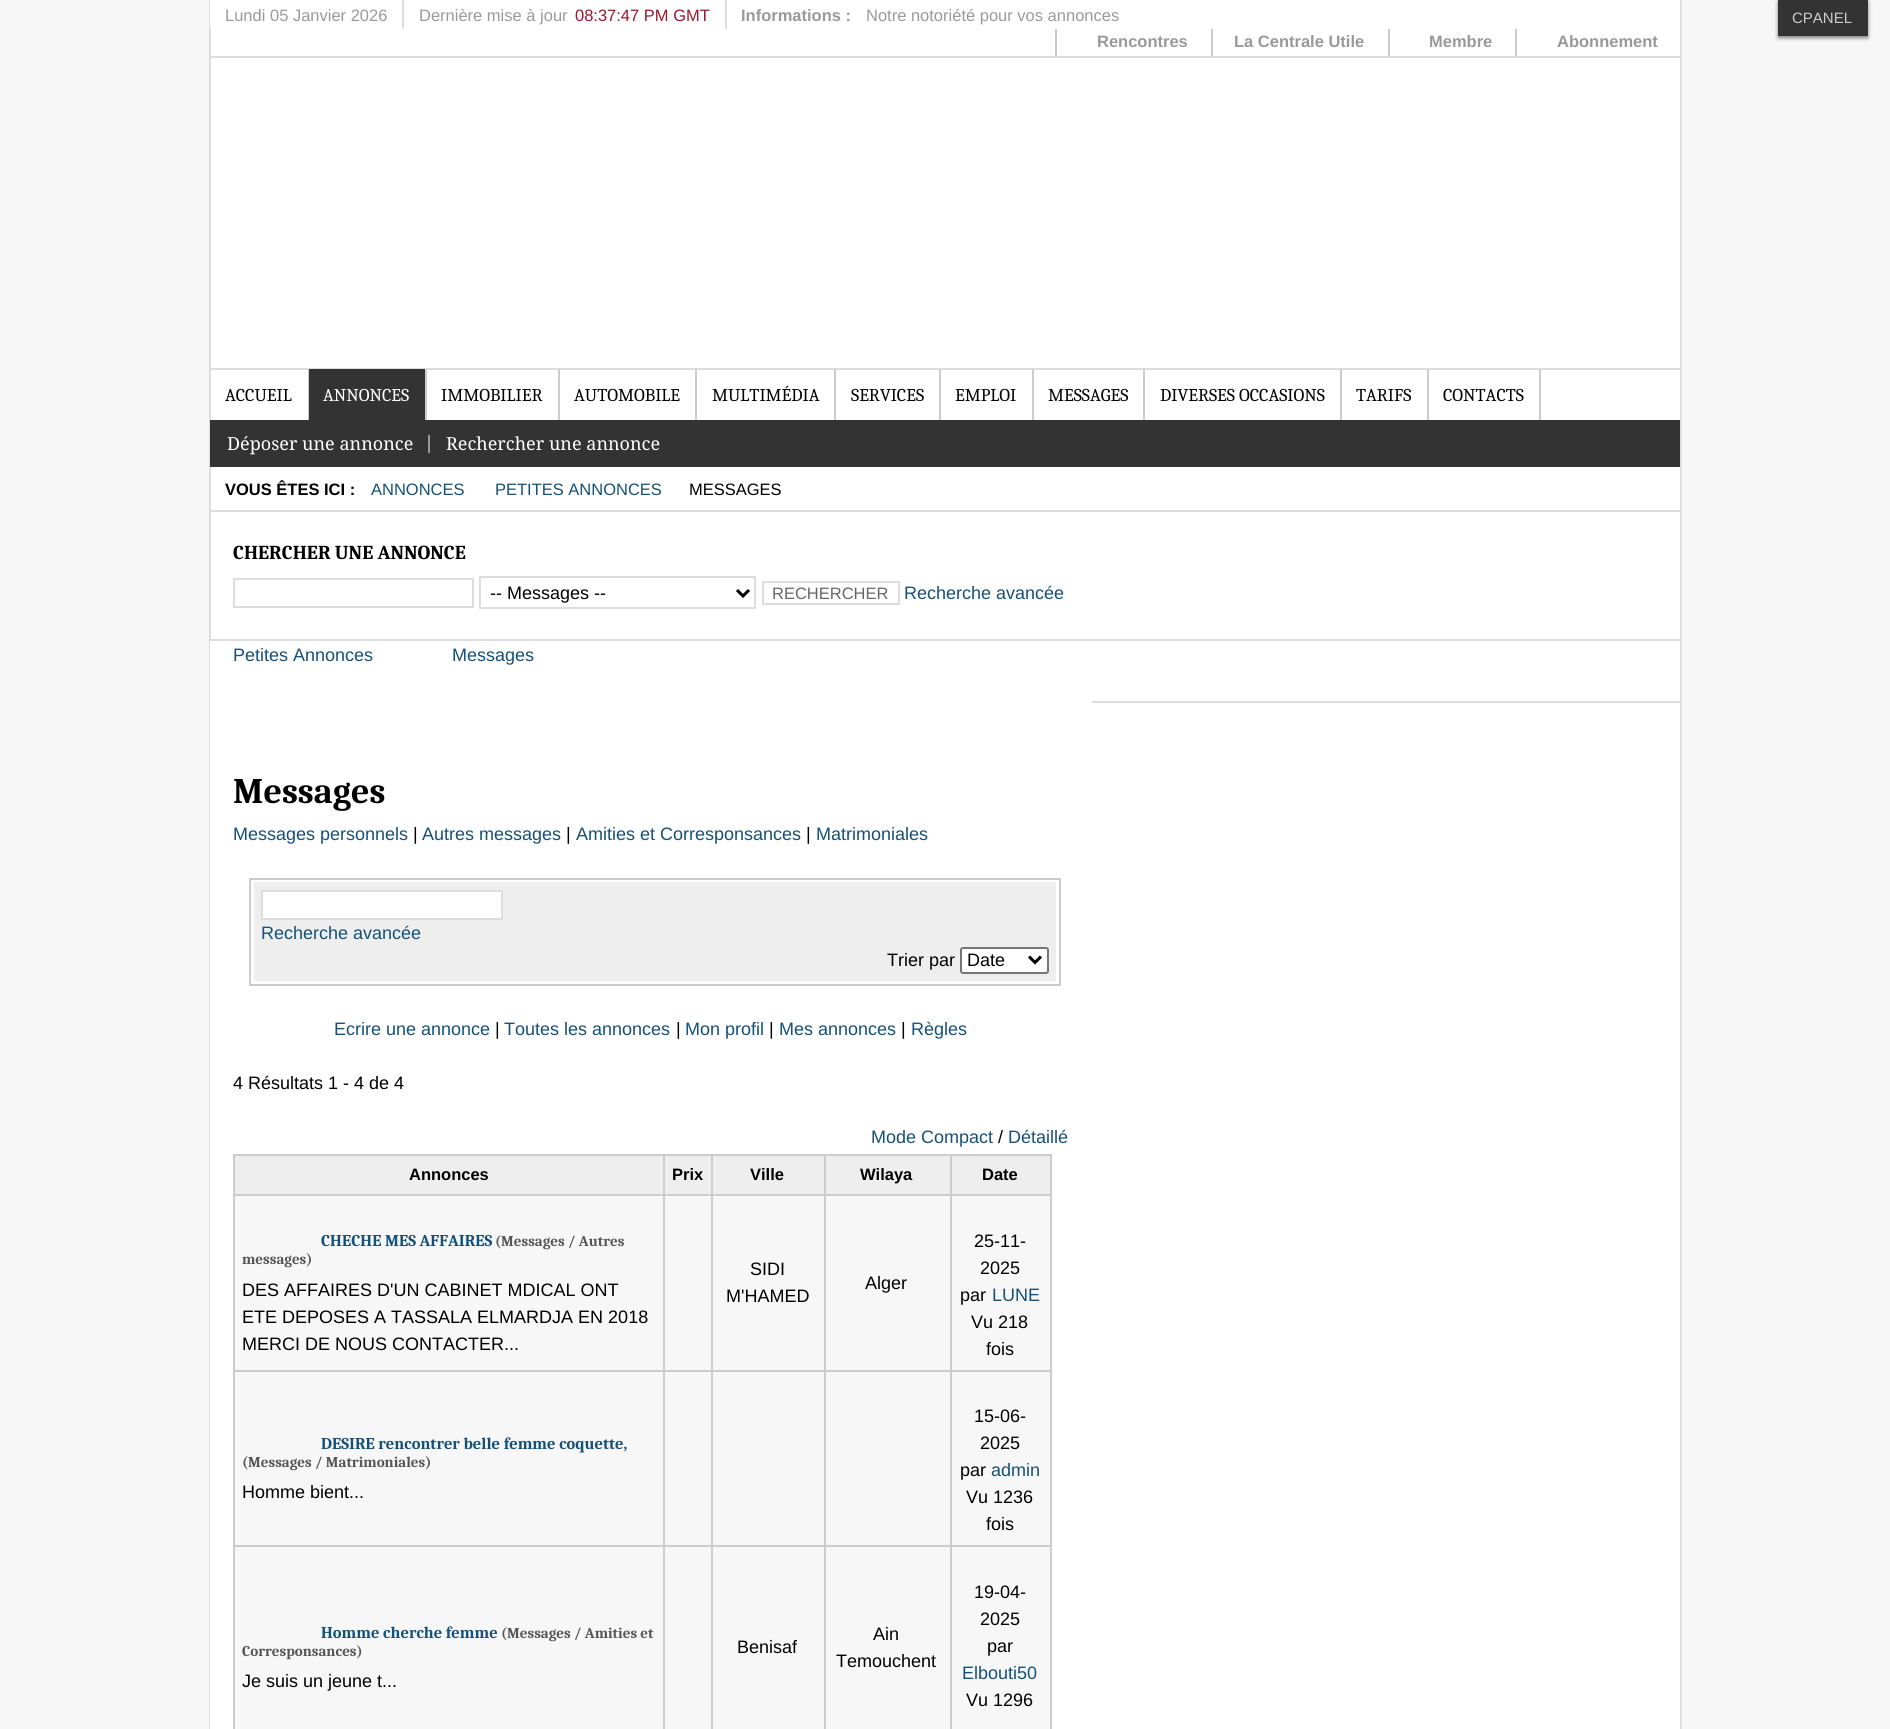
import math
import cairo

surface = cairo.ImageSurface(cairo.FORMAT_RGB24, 1890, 1729)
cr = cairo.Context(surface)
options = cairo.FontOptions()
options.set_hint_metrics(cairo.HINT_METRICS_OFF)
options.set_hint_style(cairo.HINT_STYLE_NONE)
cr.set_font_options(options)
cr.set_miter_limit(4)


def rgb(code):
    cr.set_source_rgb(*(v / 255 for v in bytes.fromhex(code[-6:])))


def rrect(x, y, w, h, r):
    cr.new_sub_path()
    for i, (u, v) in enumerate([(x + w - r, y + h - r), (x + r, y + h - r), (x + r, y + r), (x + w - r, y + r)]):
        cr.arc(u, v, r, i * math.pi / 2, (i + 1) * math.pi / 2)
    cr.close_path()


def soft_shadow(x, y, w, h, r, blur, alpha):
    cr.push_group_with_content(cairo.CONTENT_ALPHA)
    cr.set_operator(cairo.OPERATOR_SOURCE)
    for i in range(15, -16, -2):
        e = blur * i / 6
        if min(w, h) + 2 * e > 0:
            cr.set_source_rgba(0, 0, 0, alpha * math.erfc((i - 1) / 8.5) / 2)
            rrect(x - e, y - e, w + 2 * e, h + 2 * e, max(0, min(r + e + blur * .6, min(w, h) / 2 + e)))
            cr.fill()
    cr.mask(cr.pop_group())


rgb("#f7f7f7")
cr.paint()
for x, y, w, h, color in [
    (211, 0, 1469, 368, "#ffffff"),
    (209, 368, 1473, 2, "#dddddd"),
    (209, 0, 2, 467, "#dddddd"),
    (210, 56, 1470, 2, "#dddddd"),
    (210, 0, 1, 29, "#ffffff"),
    (402, 0, 2, 29, "#dddddd"),
    (725, 0, 2, 29, "#dddddd"),
    (1055, 29, 2, 27, "#cccccc"),
    (1211, 29, 2, 27, "#cccccc"),
    (1388, 29, 2, 27, "#cccccc"),
    (1515, 29, 2, 27, "#cccccc"),
]:
    rgb(color)
    cr.rectangle(x, y, w, h)
    cr.fill()
rgb("#000000")
soft_shadow(1778, 2, 90, 36, 0, 2, 0.5)
for x, y, w, h, color in [
    (1778, 0, 90, 36, "#333333"),
    (211, 370, 1469, 50, "#ffffff"),
    (1680, 0, 2, 467, "#dddddd"),
    (308, 369, 1, 51, "#cccccc"),
    (425, 369, 2, 51, "#cccccc"),
    (309, 369, 116, 51, "#333333"),
    (558, 369, 2, 51, "#cccccc"),
    (695, 369, 2, 51, "#cccccc"),
    (834, 369, 2, 51, "#cccccc"),
    (939, 369, 2, 51, "#cccccc"),
    (1032, 369, 2, 51, "#cccccc"),
    (1143, 369, 2, 51, "#cccccc"),
    (1340, 369, 2, 51, "#cccccc"),
    (1427, 369, 2, 51, "#cccccc"),
    (1539, 369, 2, 51, "#cccccc"),
    (210, 420, 1470, 47, "#333333"),
    (428, 435, 2, 18, "#999999"),
    (211, 467, 1469, 43, "#ffffff"),
    (1680, 467, 2, 1262, "#dddddd"),
    (209, 510, 1473, 2, "#dddddd"),
    (209, 467, 2, 45, "#dddddd"),
    (211, 512, 1469, 127, "#ffffff"),
    (209, 639, 1473, 2, "#dddddd"),
    (209, 512, 2, 129, "#dddddd"),
]:
    rgb(color)
    cr.rectangle(x, y, w, h)
    cr.fill()
cr.rectangle(234, 579, 239, 28)
cr.stroke()
cr.rectangle(480, 577, 275, 31)
cr.stroke()
cr.new_path()
cr.move_to(737, 590)
cr.line_to(743, 596)
cr.line_to(749, 590)
rgb("#000000")
cr.set_line_width(3)
cr.stroke()
cr.rectangle(763, 582, 136, 22)
rgb("#dddddd")
cr.set_line_width(2)
cr.stroke()
rgb("#ffffff")
cr.rectangle(210, 641, 1470, 1088)
cr.fill()
rgb("#dddddd")
cr.rectangle(209, 641, 1, 1088)
cr.fill()
cr.rectangle(250, 879, 810, 106)
rgb("#cccccc")
cr.stroke()
rgb("#eeeeee")
cr.rectangle(254, 882, 802, 99)
cr.fill()
rgb("#ffffff")
cr.rectangle(262, 891, 240, 28)
cr.fill_preserve()
rgb("#dddddd")
cr.stroke()
rgb("#ffffff")
rrect(961, 948, 87, 25, 2)
cr.fill_preserve()
rgb("#767676")
cr.stroke()
cr.new_path()
cr.move_to(1029, 956.5)
cr.line_to(1035, 962.5)
cr.line_to(1041, 956.5)
rgb("#000000")
cr.set_line_width(3)
cr.stroke()
for x, y, w, h, color in [
    (235, 1196, 815, 533, "#f7f7f7"),
    (233, 1154, 819, 2, "#cccccc"),
    (1050, 1154, 2, 575, "#cccccc"),
    (233, 1154, 2, 575, "#cccccc"),
    (235, 1156, 428, 38, "#eeeeee"),
    (665, 1156, 46, 38, "#eeeeee"),
    (950, 1194, 102, 2, "#cccccc"),
    (950, 1370, 102, 2, "#cccccc"),
    (950, 1545, 102, 2, "#cccccc"),
    (950, 1545, 2, 184, "#cccccc"),
    (824, 1545, 127, 2, "#cccccc"),
    (950, 1370, 2, 177, "#cccccc"),
    (824, 1370, 127, 2, "#cccccc"),
    (950, 1194, 2, 177, "#cccccc"),
    (824, 1194, 127, 2, "#cccccc"),
    (824, 1545, 2, 184, "#cccccc"),
    (711, 1545, 114, 2, "#cccccc"),
    (824, 1370, 2, 177, "#cccccc"),
    (711, 1370, 114, 2, "#cccccc"),
    (824, 1194, 2, 177, "#cccccc"),
    (711, 1194, 114, 2, "#cccccc"),
    (711, 1545, 2, 184, "#cccccc"),
    (663, 1545, 50, 2, "#cccccc"),
    (711, 1370, 2, 177, "#cccccc"),
    (663, 1370, 50, 2, "#cccccc"),
    (711, 1194, 2, 177, "#cccccc"),
    (663, 1194, 50, 2, "#cccccc"),
    (663, 1545, 2, 184, "#cccccc"),
    (233, 1545, 432, 2, "#cccccc"),
    (663, 1370, 2, 177, "#cccccc"),
    (233, 1370, 432, 2, "#cccccc"),
    (663, 1194, 2, 177, "#cccccc"),
    (233, 1194, 432, 2, "#cccccc"),
    (663, 1154, 2, 42, "#cccccc"),
    (713, 1156, 111, 38, "#eeeeee"),
    (711, 1154, 2, 42, "#cccccc"),
    (826, 1156, 124, 38, "#eeeeee"),
    (824, 1154, 2, 42, "#cccccc"),
    (952, 1156, 98, 38, "#eeeeee"),
    (950, 1154, 2, 42, "#cccccc"),
    (1092, 701, 588, 2, "#dddddd"),
]:
    rgb(color)
    cr.rectangle(x, y, w, h)
    cr.fill()
cr.select_font_face("Liberation Sans")
cr.set_font_size(16.5)
rgb("#999999")
cr.move_to(225, 21)
cr.show_text("Lundi 05 Janvier 2026")
cr.move_to(419, 21)
cr.show_text("Dernière mise à jour")
rgb("#9c162e")
cr.move_to(575, 21)
cr.show_text("08:37:47 PM GMT")
cr.select_font_face("Liberation Sans", cairo.FONT_SLANT_NORMAL, cairo.FONT_WEIGHT_BOLD)
rgb("#999999")
cr.move_to(741, 21)
cr.show_text("Informations :")
cr.select_font_face("Liberation Sans")
cr.move_to(866, 21)
cr.show_text("Notre notoriété pour vos annonces")
cr.select_font_face("Liberation Sans", cairo.FONT_SLANT_NORMAL, cairo.FONT_WEIGHT_BOLD)
for x, y, s in [
    (1097, 47, "Rencontres"),
    (1234, 47, "La Centrale Utile"),
    (1429, 47, "Membre"),
    (1557, 47, "Abonnement"),
]:
    cr.move_to(x, y)
    cr.show_text(s)
cr.select_font_face("Liberation Sans")
cr.set_font_size(15)
rgb("#cccccc")
cr.move_to(1792, 23)
cr.show_text("CPANEL")
cr.select_font_face("Caladea")
cr.set_font_size(18)
rgb("#000000")
cr.move_to(225, 401)
cr.show_text("ACCUEIL")
rgb("#ffffff")
cr.move_to(323, 401)
cr.show_text("ANNONCES")
rgb("#000000")
for x, y, s in [
    (441, 401, "IMMOBILIER"),
    (574, 401, "AUTOMOBILE"),
    (712, 401, "MULTIMÉDIA"),
    (851, 401, "SERVICES"),
    (955, 401, "EMPLOI"),
    (1048, 401, "MESSAGES"),
    (1160, 401, "DIVERSES OCCASIONS"),
    (1356, 401, "TARIFS"),
    (1443, 401, "CONTACTS"),
]:
    cr.move_to(x, y)
    cr.show_text(s)
cr.select_font_face("Droid Serif")
rgb("#ffffff")
cr.move_to(227, 450)
cr.show_text("Déposer une annonce")
cr.move_to(446, 450)
cr.show_text("Rechercher une annonce")
cr.select_font_face("Liberation Sans", cairo.FONT_SLANT_NORMAL, cairo.FONT_WEIGHT_BOLD)
cr.set_font_size(16.5)
rgb("#000000")
cr.move_to(225, 495)
cr.show_text("VOUS ÊTES ICI :")
cr.select_font_face("Liberation Sans")
rgb("#145077")
cr.move_to(371, 495)
cr.show_text("ANNONCES")
cr.move_to(495, 495)
cr.show_text("PETITES ANNONCES")
rgb("#000000")
cr.move_to(689, 495)
cr.show_text("MESSAGES")
cr.select_font_face("Caladea", cairo.FONT_SLANT_NORMAL, cairo.FONT_WEIGHT_BOLD)
cr.set_font_size(19.75)
cr.move_to(233, 559)
cr.show_text("CHERCHER UNE ANNONCE")
cr.select_font_face("Liberation Sans")
cr.set_font_size(18)
cr.move_to(490, 599)
cr.show_text("-- Messages --")
cr.set_font_size(16.5)
rgb("#666666")
cr.move_to(772, 599)
cr.show_text("RECHERCHER")
cr.set_font_size(18)
rgb("#145077")
for x, y, s in [
    (904, 599, "Recherche avancée"),
    (233, 661, "Petites Annonces"),
    (452, 661, "Messages"),
]:
    cr.move_to(x, y)
    cr.show_text(s)
cr.select_font_face("Caladea", cairo.FONT_SLANT_NORMAL, cairo.FONT_WEIGHT_BOLD)
cr.set_font_size(36)
rgb("#000000")
cr.move_to(233, 803)
cr.show_text("Messages")
cr.select_font_face("Liberation Sans")
cr.set_font_size(18)
rgb("#145077")
cr.move_to(233, 840)
cr.show_text("Messages personnels")
rgb("#000000")
cr.move_to(413, 840)
cr.show_text("|")
rgb("#145077")
cr.move_to(422, 840)
cr.show_text("Autres messages")
rgb("#000000")
cr.move_to(566, 840)
cr.show_text("|")
rgb("#145077")
cr.move_to(576, 840)
cr.show_text("Amities et Corresponsances")
rgb("#000000")
cr.move_to(806, 840)
cr.show_text("|")
rgb("#145077")
cr.move_to(816, 840)
cr.show_text("Matrimoniales")
cr.move_to(261, 939)
cr.show_text("Recherche avancée")
rgb("#000000")
cr.move_to(887, 966)
cr.show_text("Trier par")
cr.move_to(967, 966)
cr.show_text("Date")
rgb("#145077")
cr.move_to(334, 1035)
cr.show_text("Ecrire une annonce")
rgb("#000000")
cr.move_to(495, 1035)
cr.show_text("|")
rgb("#145077")
cr.move_to(504, 1035)
cr.show_text("Toutes les annonces")
rgb("#000000")
cr.move_to(676, 1035)
cr.show_text("|")
rgb("#145077")
cr.move_to(685, 1035)
cr.show_text("Mon profil")
rgb("#000000")
cr.move_to(769, 1035)
cr.show_text("|")
rgb("#145077")
cr.move_to(779, 1035)
cr.show_text("Mes annonces")
rgb("#000000")
cr.move_to(901, 1035)
cr.show_text("|")
rgb("#145077")
cr.move_to(911, 1035)
cr.show_text("Règles")
rgb("#000000")
cr.move_to(233, 1089)
cr.show_text("4 Résultats 1 - 4 de 4")
rgb("#145077")
cr.move_to(871, 1143)
cr.show_text("Mode Compact")
rgb("#000000")
cr.move_to(998, 1143)
cr.show_text("/")
rgb("#145077")
cr.move_to(1008, 1143)
cr.show_text("Détaillé")
cr.select_font_face("Liberation Sans", cairo.FONT_SLANT_NORMAL, cairo.FONT_WEIGHT_BOLD)
cr.set_font_size(16.5)
rgb("#000000")
for x, y, s in [
    (409, 1180, "Annonces"),
    (672, 1180, "Prix"),
    (750, 1180, "Ville"),
    (860, 1180, "Wilaya"),
    (982, 1180, "Date"),
]:
    cr.move_to(x, y)
    cr.show_text(s)
cr.select_font_face("Caladea", cairo.FONT_SLANT_NORMAL, cairo.FONT_WEIGHT_BOLD)
rgb("#145077")
cr.move_to(321, 1246)
cr.show_text("CHECHE MES AFFAIRES")
cr.set_font_size(15)
rgb("#555555")
cr.move_to(495, 1246)
cr.show_text("(Messages / Autres")
cr.move_to(242, 1264)
cr.show_text("messages)")
cr.select_font_face("Liberation Sans")
cr.set_font_size(18)
rgb("#000000")
for x, y, s in [
    (242, 1296, "DES AFFAIRES D'UN CABINET MDICAL ONT"),
    (242, 1323, "ETE DEPOSES A TASSALA ELMARDJA EN 2018"),
    (242, 1350, "MERCI DE NOUS CONTACTER..."),
    (750, 1275, "SIDI"),
    (726, 1302, "M'HAMED"),
    (865, 1289, "Alger"),
    (974, 1247, "25-11-"),
    (980, 1274, "2025"),
    (960, 1301, "par"),
]:
    cr.move_to(x, y)
    cr.show_text(s)
rgb("#145077")
cr.move_to(992, 1301)
cr.show_text("LUNE")
rgb("#000000")
cr.move_to(971, 1328)
cr.show_text("Vu 218")
cr.move_to(986, 1355)
cr.show_text("fois")
cr.select_font_face("Caladea", cairo.FONT_SLANT_NORMAL, cairo.FONT_WEIGHT_BOLD)
cr.set_font_size(16.5)
rgb("#145077")
cr.move_to(321, 1449)
cr.show_text("DESIRE rencontrer belle femme coquette,")
cr.set_font_size(15)
rgb("#555555")
cr.move_to(242, 1467)
cr.show_text("(Messages / Matrimoniales)")
cr.select_font_face("Liberation Sans")
cr.set_font_size(18)
rgb("#000000")
for x, y, s in [
    (242, 1498, "Homme bient..."),
    (974, 1422, "15-06-"),
    (980, 1449, "2025"),
    (960, 1476, "par"),
]:
    cr.move_to(x, y)
    cr.show_text(s)
rgb("#145077")
cr.move_to(991, 1476)
cr.show_text("admin")
rgb("#000000")
cr.move_to(966, 1503)
cr.show_text("Vu 1236")
cr.move_to(986, 1530)
cr.show_text("fois")
cr.select_font_face("Caladea", cairo.FONT_SLANT_NORMAL, cairo.FONT_WEIGHT_BOLD)
cr.set_font_size(16.5)
rgb("#145077")
cr.move_to(321, 1638)
cr.show_text("Homme cherche femme")
cr.set_font_size(15)
rgb("#555555")
cr.move_to(501, 1638)
cr.show_text("(Messages / Amities et")
cr.move_to(242, 1656)
cr.show_text("Corresponsances)")
cr.select_font_face("Liberation Sans")
cr.set_font_size(18)
rgb("#000000")
for x, y, s in [
    (242, 1687, "Je suis un jeune t..."),
    (737, 1653, "Benisaf"),
    (873, 1640, "Ain"),
    (836, 1667, "Temouchent"),
    (974, 1598, "19-04-"),
    (980, 1625, "2025"),
    (987, 1652, "par"),
]:
    cr.move_to(x, y)
    cr.show_text(s)
rgb("#145077")
cr.move_to(962, 1679)
cr.show_text("Elbouti50")
rgb("#000000")
cr.move_to(966, 1706)
cr.show_text("Vu 1296")
surface.write_to_png("page.png")
